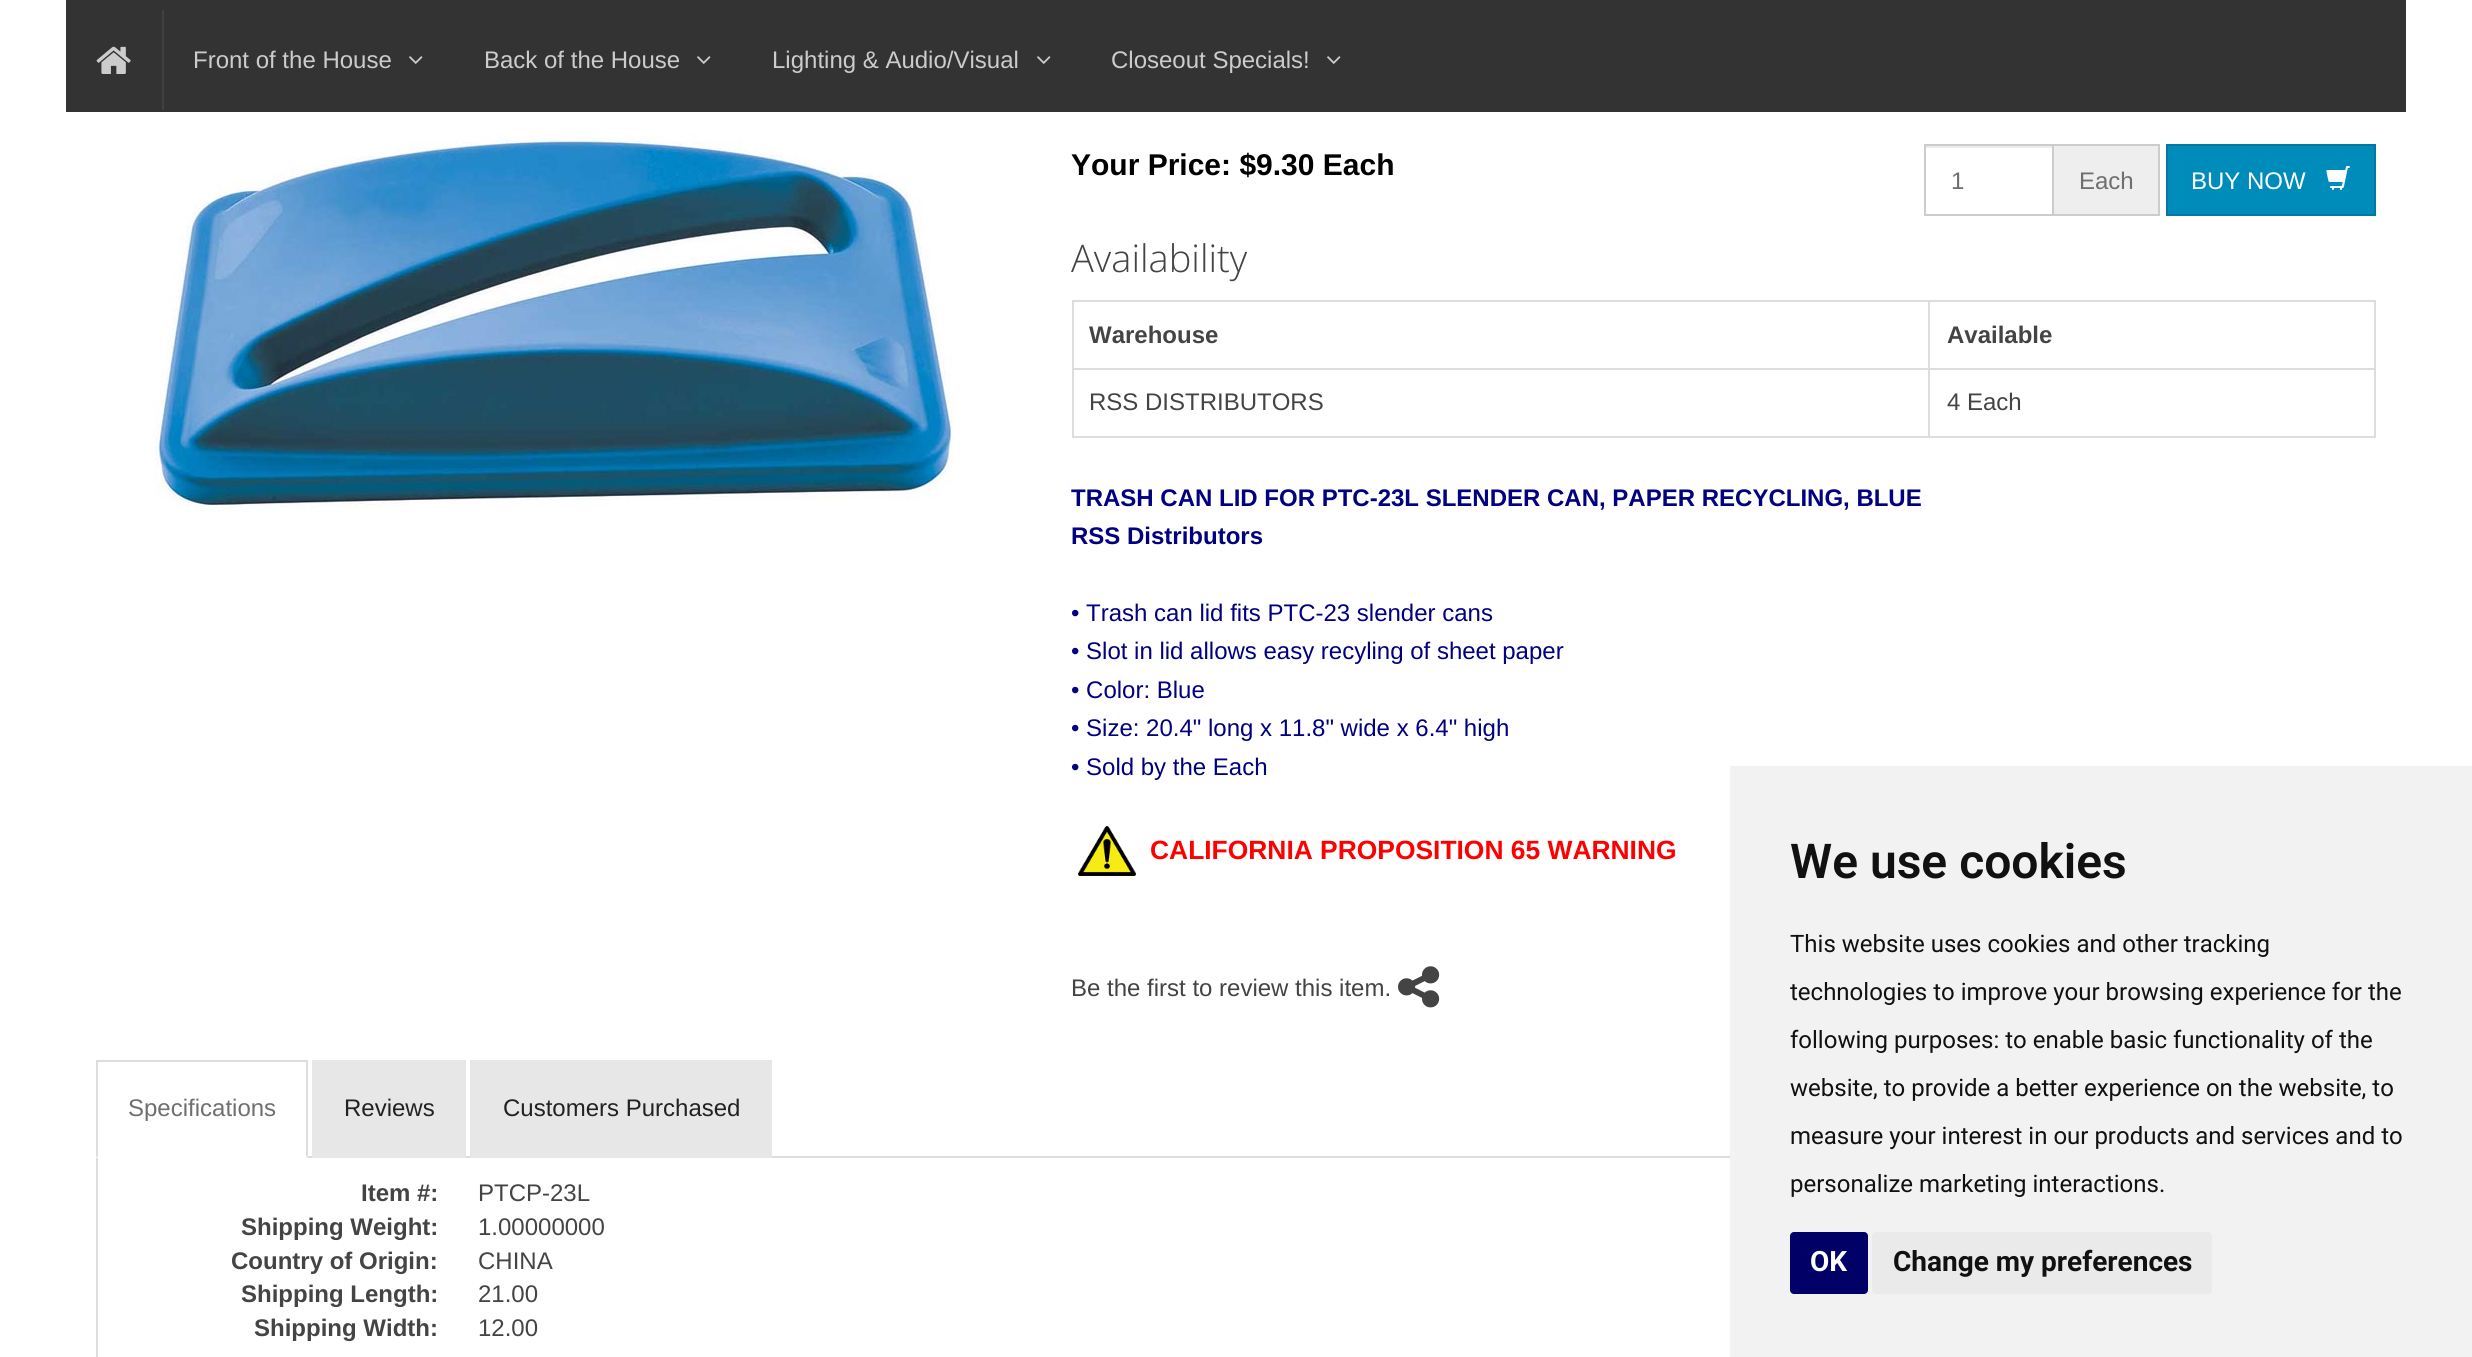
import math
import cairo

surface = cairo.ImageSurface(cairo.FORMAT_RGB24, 2472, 1357)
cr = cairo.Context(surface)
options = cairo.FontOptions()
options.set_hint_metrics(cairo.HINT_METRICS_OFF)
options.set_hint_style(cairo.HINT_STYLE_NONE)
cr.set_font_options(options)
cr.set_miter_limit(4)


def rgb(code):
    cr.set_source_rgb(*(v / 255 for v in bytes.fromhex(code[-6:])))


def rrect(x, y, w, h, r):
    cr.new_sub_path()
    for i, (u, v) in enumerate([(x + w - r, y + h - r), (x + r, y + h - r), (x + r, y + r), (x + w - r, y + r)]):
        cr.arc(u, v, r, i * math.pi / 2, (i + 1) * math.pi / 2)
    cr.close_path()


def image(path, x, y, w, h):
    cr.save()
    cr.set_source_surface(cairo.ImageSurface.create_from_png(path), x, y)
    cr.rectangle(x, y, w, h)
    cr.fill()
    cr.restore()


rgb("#ffffff")
cr.paint()
rgb("#333333")
cr.rectangle(66, 0, 2340, 112)
cr.fill()
image("img/1.png", 96, 46, 35, 28)
rgb("#404040")
cr.rectangle(162, 10, 2, 100)
cr.fill()
image("img/2.png", 409, 56, 14, 8)
image("img/2.png", 697, 56, 14, 8)
image("img/2.png", 1037, 56, 14, 8)
image("img/2.png", 1327, 56, 14, 8)
image("img/3.png", 154, 134, 800, 379)
rgb("#ececec")
cr.rectangle(1926, 146, 126, 2)
cr.fill()
cr.rectangle(1925, 145, 128, 70)
rgb("#cccccc")
cr.stroke()
for x, y, w, h, color in [
    (2054, 146, 104, 68, "#eeeeee"),
    (2054, 144, 106, 2, "#cccccc"),
    (2158, 144, 2, 72, "#cccccc"),
    (2054, 214, 106, 2, "#cccccc"),
]:
    rgb(color)
    cr.rectangle(x, y, w, h)
    cr.fill()
rgb("#008cba")
cr.rectangle(2167, 145, 208, 70)
cr.fill_preserve()
rgb("#0079a1")
cr.stroke()
image("img/4.png", 2326, 166, 24, 24)
for x, y, w, h, color in [
    (1072, 300, 1304, 2, "#dddddd"),
    (2374, 300, 2, 138, "#dddddd"),
    (1072, 436, 1304, 2, "#dddddd"),
    (1072, 300, 2, 138, "#dddddd"),
    (1072, 368, 1304, 2, "#dddddd"),
    (1928, 300, 2, 138, "#dddddd"),
]:
    rgb(color)
    cr.rectangle(x, y, w, h)
    cr.fill()
image("img/5.png", 1078, 826, 58, 50)
image("img/6.png", 1398, 966, 42, 42)
cr.rectangle(308, 1156, 1422, 2)
cr.fill()
cr.rectangle(96, 1060, 212, 2)
cr.fill()
cr.new_path()
cr.move_to(308, 1060)
cr.line_to(308, 1158)
cr.line_to(306, 1156)
cr.line_to(306, 1062)
cr.close_path()
cr.fill()
cr.new_path()
cr.move_to(96, 1158)
cr.line_to(96, 1060)
cr.line_to(98, 1062)
cr.line_to(98, 1156)
cr.close_path()
cr.fill()
rgb("#e7e7e7")
cr.rectangle(312, 1060, 154, 98)
cr.fill()
cr.rectangle(470, 1060, 302, 98)
cr.fill()
rgb("#dddddd")
cr.set_fill_rule(cairo.FILL_RULE_EVEN_ODD)
cr.new_path()
cr.move_to(96, 1158)
cr.line_to(2376, 1158)
cr.line_to(2376, 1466)
cr.curve_to(2376, 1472, 2372, 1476, 2366, 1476)
cr.line_to(106, 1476)
cr.curve_to(100, 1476, 96, 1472, 96, 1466)
cr.close_path()
cr.move_to(98, 1158)
cr.line_to(2374, 1158)
cr.line_to(2374, 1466)
cr.curve_to(2374, 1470, 2370, 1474, 2366, 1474)
cr.line_to(106, 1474)
cr.curve_to(102, 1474, 98, 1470, 98, 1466)
cr.close_path()
cr.fill()
rgb("#f2f2f2")
cr.rectangle(1730, 766, 742, 591)
cr.fill()
rgb("#000066")
rrect(1790, 1232, 78, 62, 4)
cr.fill()
rgb("#eaeaea")
rrect(1872, 1232, 340, 62, 4)
cr.fill()
cr.select_font_face("Liberation Sans")
cr.set_font_size(24)
rgb("#cccccc")
for x, y, s in [
    (193, 68, "Front of the House"),
    (484, 68, "Back of the House"),
    (772, 68, "Lighting & Audio/Visual"),
    (1111, 68, "Closeout Specials!"),
]:
    cr.move_to(x, y)
    cr.show_text(s)
cr.select_font_face("Liberation Sans", cairo.FONT_SLANT_NORMAL, cairo.FONT_WEIGHT_BOLD)
cr.set_font_size(30)
rgb("#000000")
cr.move_to(1071, 175)
cr.show_text("Your Price: $9.30 Each")
cr.select_font_face("Liberation Sans")
cr.set_font_size(24)
rgb("#6f6f6f")
cr.move_to(1951, 189)
cr.show_text("1")
cr.move_to(2079, 189)
cr.show_text("Each")
rgb("#ffffff")
cr.move_to(2191, 189)
cr.show_text("BUY NOW")
cr.select_font_face("Open Sans Light")
cr.set_font_size(38)
rgb("#444444")
cr.move_to(1071, 272)
cr.show_text("Availability")
cr.select_font_face("Liberation Sans", cairo.FONT_SLANT_NORMAL, cairo.FONT_WEIGHT_BOLD)
cr.set_font_size(24)
cr.move_to(1089, 343)
cr.show_text("Warehouse")
cr.move_to(1947, 343)
cr.show_text("Available")
cr.select_font_face("Liberation Sans")
cr.move_to(1089, 410)
cr.show_text("RSS DISTRIBUTORS")
cr.move_to(1947, 410)
cr.show_text("4 Each")
cr.select_font_face("Liberation Sans", cairo.FONT_SLANT_NORMAL, cairo.FONT_WEIGHT_BOLD)
rgb("#000080")
cr.move_to(1071, 506)
cr.show_text("TRASH CAN LID FOR PTC-23L SLENDER CAN, PAPER RECYCLING, BLUE")
cr.move_to(1071, 544)
cr.show_text("RSS Distributors")
cr.select_font_face("Liberation Sans")
for x, y, s in [
    (1071, 621, "• Trash can lid fits PTC-23 slender cans"),
    (1071, 659, "• Slot in lid allows easy recyling of sheet paper"),
    (1071, 698, "• Color: Blue"),
    (1071, 736, "• Size: 20.4\" long x 11.8\" wide x 6.4\" high"),
    (1071, 775, "• Sold by the Each"),
]:
    cr.move_to(x, y)
    cr.show_text(s)
cr.select_font_face("Liberation Sans", cairo.FONT_SLANT_NORMAL, cairo.FONT_WEIGHT_BOLD)
cr.set_font_size(26.4)
rgb("#ff0000")
cr.move_to(1150, 859)
cr.show_text("CALIFORNIA PROPOSITION 65 WARNING")
cr.select_font_face("Liberation Sans")
cr.set_font_size(24)
rgb("#444444")
cr.move_to(1071, 996)
cr.show_text("Be the first to review this item.")
rgb("#6f6f6f")
cr.move_to(128, 1116)
cr.show_text("Specifications")
rgb("#222222")
cr.move_to(344, 1116)
cr.show_text("Reviews")
cr.move_to(503, 1116)
cr.show_text("Customers Purchased")
cr.select_font_face("Liberation Sans", cairo.FONT_SLANT_NORMAL, cairo.FONT_WEIGHT_BOLD)
rgb("#444444")
cr.move_to(361, 1201)
cr.show_text("Item #:")
cr.select_font_face("Liberation Sans")
cr.move_to(478, 1201)
cr.show_text("PTCP-23L")
cr.select_font_face("Liberation Sans", cairo.FONT_SLANT_NORMAL, cairo.FONT_WEIGHT_BOLD)
cr.move_to(241, 1235)
cr.show_text("Shipping Weight:")
cr.select_font_face("Liberation Sans")
cr.move_to(478, 1235)
cr.show_text("1.00000000")
cr.select_font_face("Liberation Sans", cairo.FONT_SLANT_NORMAL, cairo.FONT_WEIGHT_BOLD)
cr.move_to(231, 1269)
cr.show_text("Country of Origin:")
cr.select_font_face("Liberation Sans")
cr.move_to(478, 1269)
cr.show_text("CHINA")
cr.select_font_face("Liberation Sans", cairo.FONT_SLANT_NORMAL, cairo.FONT_WEIGHT_BOLD)
cr.move_to(241, 1302)
cr.show_text("Shipping Length:")
cr.select_font_face("Liberation Sans")
cr.move_to(478, 1302)
cr.show_text("21.00")
cr.select_font_face("Liberation Sans", cairo.FONT_SLANT_NORMAL, cairo.FONT_WEIGHT_BOLD)
cr.move_to(254, 1336)
cr.show_text("Shipping Width:")
cr.select_font_face("Liberation Sans")
cr.move_to(478, 1336)
cr.show_text("12.00")
cr.select_font_face("Roboto SemiBold")
cr.set_font_size(48)
rgb("#111111")
cr.move_to(1790, 878)
cr.show_text("We use cookies")
cr.select_font_face("Roboto")
cr.set_font_size(24)
for x, y, s in [
    (1790, 952, "This website uses cookies and other tracking"),
    (1790, 1000, "technologies to improve your browsing experience for the"),
    (1790, 1048, "following purposes: to enable basic functionality of the"),
    (1790, 1096, "website, to provide a better experience on the website, to"),
    (1790, 1144, "measure your interest in our products and services and to"),
    (1790, 1192, "personalize marketing interactions."),
]:
    cr.move_to(x, y)
    cr.show_text(s)
cr.select_font_face("Roboto", cairo.FONT_SLANT_NORMAL, cairo.FONT_WEIGHT_BOLD)
cr.set_font_size(28)
rgb("#ffffff")
cr.move_to(1810, 1271)
cr.show_text("OK")
rgb("#111111")
cr.move_to(1893, 1271)
cr.show_text("Change my preferences")
surface.write_to_png("page.png")
